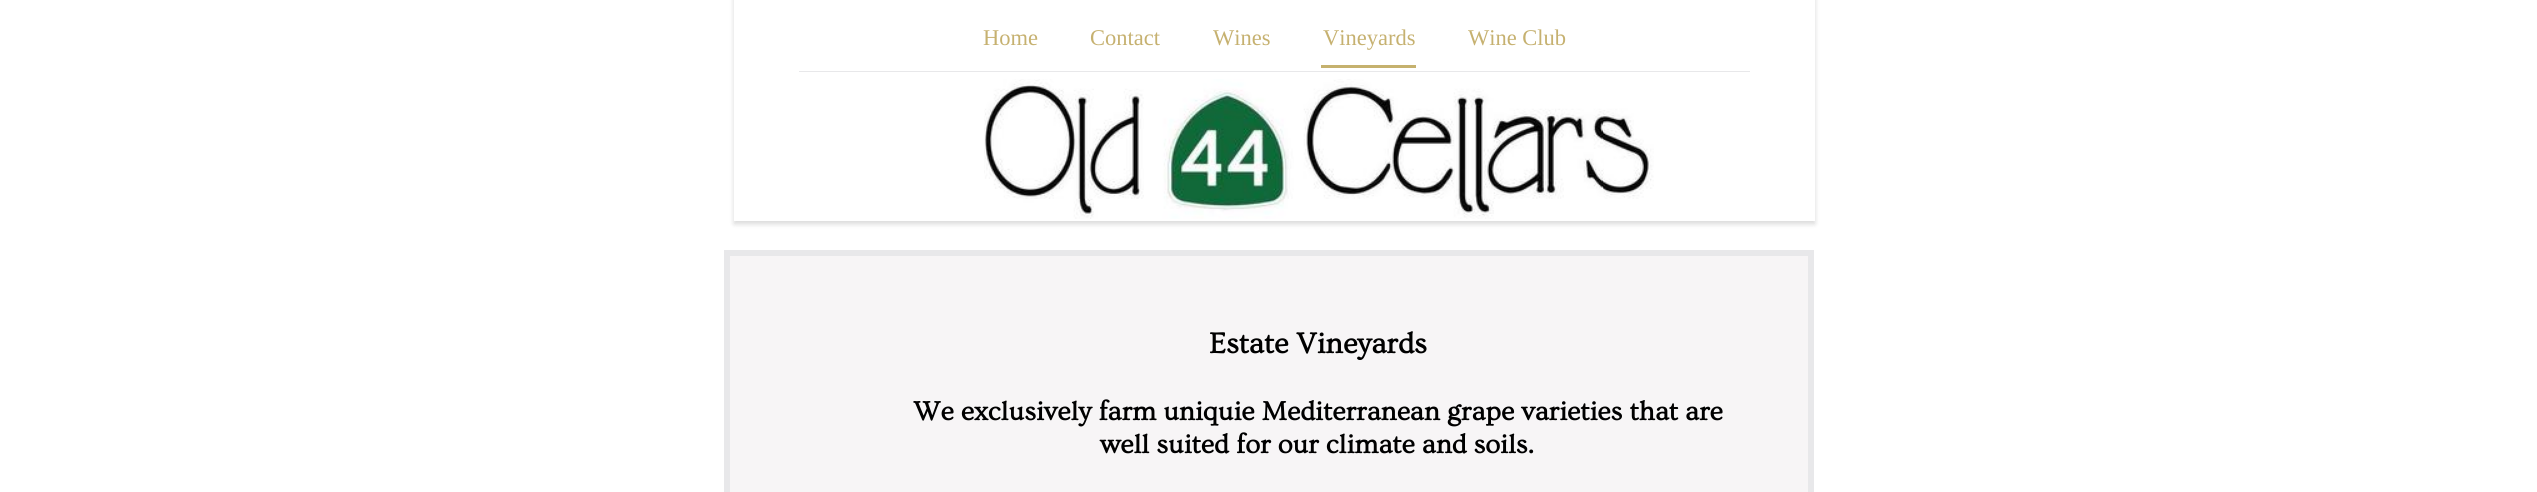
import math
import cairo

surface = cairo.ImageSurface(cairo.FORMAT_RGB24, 2537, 492)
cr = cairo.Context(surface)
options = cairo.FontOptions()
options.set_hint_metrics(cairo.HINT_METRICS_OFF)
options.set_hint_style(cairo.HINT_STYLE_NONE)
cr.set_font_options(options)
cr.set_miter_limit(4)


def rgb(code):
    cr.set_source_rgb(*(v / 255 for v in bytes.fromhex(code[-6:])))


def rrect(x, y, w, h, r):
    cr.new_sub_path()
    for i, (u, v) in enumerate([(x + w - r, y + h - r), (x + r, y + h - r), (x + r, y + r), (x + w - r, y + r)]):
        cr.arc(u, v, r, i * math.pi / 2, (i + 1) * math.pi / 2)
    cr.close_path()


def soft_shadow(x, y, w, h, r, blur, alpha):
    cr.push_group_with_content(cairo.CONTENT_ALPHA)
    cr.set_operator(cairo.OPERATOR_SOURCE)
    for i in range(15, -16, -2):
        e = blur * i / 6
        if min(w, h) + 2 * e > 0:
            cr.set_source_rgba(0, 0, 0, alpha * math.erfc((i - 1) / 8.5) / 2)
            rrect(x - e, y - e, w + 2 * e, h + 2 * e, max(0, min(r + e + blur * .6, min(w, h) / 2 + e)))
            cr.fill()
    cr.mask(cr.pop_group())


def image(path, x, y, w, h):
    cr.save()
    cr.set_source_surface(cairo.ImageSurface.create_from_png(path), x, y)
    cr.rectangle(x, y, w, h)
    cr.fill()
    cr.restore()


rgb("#ffffff")
cr.paint()
rgb("#f7f5f6")
cr.rectangle(727, 253, 1084, 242)
cr.fill_preserve()
rgb("#e8e8ea")
cr.set_line_width(6)
cr.stroke()
cr.save()
cr.set_fill_rule(cairo.FILL_RULE_EVEN_ODD)
cr.new_path()
cr.move_to(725, 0)
cr.line_to(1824, 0)
cr.line_to(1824, 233)
cr.line_to(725, 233)
cr.close_path()
cr.move_to(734, -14)
cr.line_to(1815, -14)
cr.line_to(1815, 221)
cr.line_to(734, 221)
cr.close_path()
cr.clip()
rgb("#000000")
soft_shadow(734, -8, 1081, 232, 0, 2.5, 0.15)
cr.restore()
cr.rectangle(799, 71, 951, 1)
cr.fill()
rgb("#c5b16e")
cr.rectangle(1321, 65, 95, 3)
cr.fill()
image("img/1.png", 984, 79, 670, 140)
cr.select_font_face("Liberation Serif")
cr.set_font_size(22.5)
rgb("#c6b170")
for x, y, s in [
    (983, 45, "Home"),
    (1090, 45, "Contact"),
    (1213, 45, "Wines"),
    (1323, 45, "Vineyards"),
    (1468, 45, "Wine Club"),
]:
    cr.move_to(x, y)
    cr.show_text(s)
cr.select_font_face("Ovo", cairo.FONT_SLANT_NORMAL, cairo.FONT_WEIGHT_BOLD)
cr.set_font_size(30)
rgb("#000000")
cr.move_to(1209, 353)
cr.show_text("Estate Vineyards")
cr.set_font_size(27.5)
cr.move_to(913, 420)
cr.show_text("We exclusively farm uniquie Mediterranean grape varieties that are")
cr.move_to(1100, 453)
cr.show_text("well suited for our climate and soils.")
surface.write_to_png("page.png")
